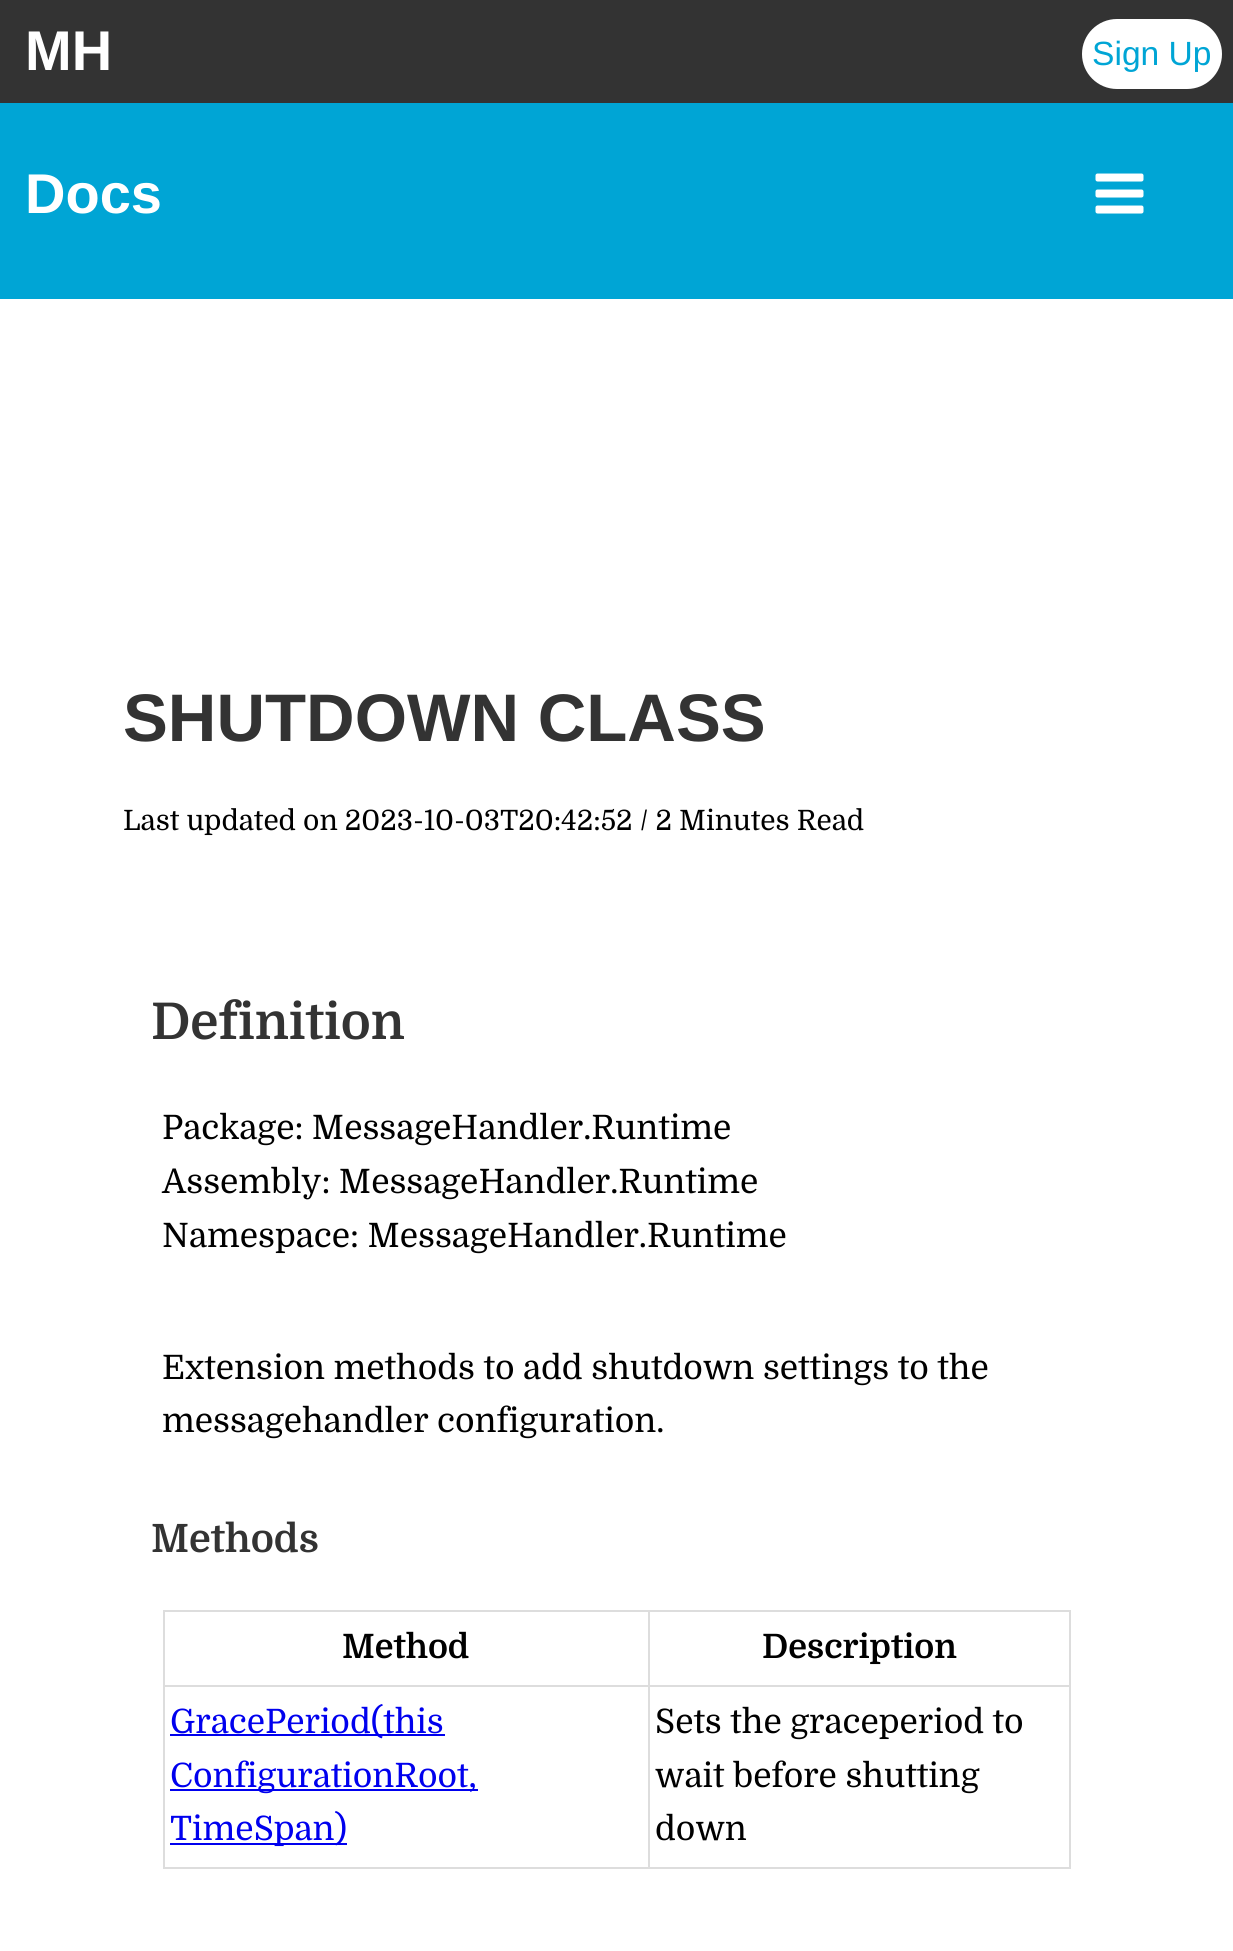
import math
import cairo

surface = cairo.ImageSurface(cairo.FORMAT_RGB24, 1233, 1951)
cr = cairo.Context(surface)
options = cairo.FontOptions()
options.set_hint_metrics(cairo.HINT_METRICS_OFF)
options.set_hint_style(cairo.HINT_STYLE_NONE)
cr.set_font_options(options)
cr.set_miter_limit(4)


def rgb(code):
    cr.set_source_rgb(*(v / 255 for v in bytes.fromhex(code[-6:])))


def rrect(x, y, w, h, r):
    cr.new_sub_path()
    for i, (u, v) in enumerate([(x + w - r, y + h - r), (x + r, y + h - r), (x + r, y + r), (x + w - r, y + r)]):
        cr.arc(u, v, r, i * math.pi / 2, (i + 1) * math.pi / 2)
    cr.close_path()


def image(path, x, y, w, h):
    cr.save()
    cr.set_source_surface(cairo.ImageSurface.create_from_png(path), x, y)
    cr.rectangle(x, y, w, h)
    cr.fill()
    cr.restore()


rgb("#333333")
cr.paint()
rgb("#ffffff")
rrect(1082, 19, 140, 70, 35)
cr.fill()
rgb("#00a5d5")
cr.rectangle(0, 103, 1233, 196)
cr.fill()
image("img/1.png", 1095, 173, 49, 41)
for x, y, w, h, color in [
    (0, 299, 1233, 1652, "#ffffff"),
    (163, 1610, 908, 2, "#dddddd"),
    (1069, 1610, 2, 259, "#dddddd"),
    (163, 1867, 908, 2, "#dddddd"),
    (163, 1610, 2, 259, "#dddddd"),
    (648, 1685, 423, 2, "#dddddd"),
    (648, 1685, 2, 184, "#dddddd"),
    (163, 1685, 486, 2, "#dddddd"),
    (648, 1610, 2, 77, "#dddddd"),
    (170, 1734, 275, 2, "#0000ee"),
    (170, 1789, 308, 2, "#0000ee"),
    (170, 1843, 177, 2, "#0000ee"),
]:
    rgb(color)
    cr.rectangle(x, y, w, h)
    cr.fill()
cr.select_font_face("Liberation Sans", cairo.FONT_SLANT_NORMAL, cairo.FONT_WEIGHT_BOLD)
cr.set_font_size(56)
rgb("#ffffff")
cr.move_to(25, 70)
cr.show_text("MH")
cr.select_font_face("Liberation Sans")
cr.set_font_size(33.6)
rgb("#00a5d5")
cr.move_to(1092, 65)
cr.show_text("Sign Up")
cr.select_font_face("Liberation Sans", cairo.FONT_SLANT_NORMAL, cairo.FONT_WEIGHT_BOLD)
cr.set_font_size(56)
rgb("#ffffff")
cr.move_to(25, 213)
cr.show_text("Docs")
cr.set_font_size(67.25)
rgb("#333333")
cr.move_to(123, 741)
cr.show_text("SHUTDOWN CLASS")
cr.select_font_face("Domine")
cr.set_font_size(28)
rgb("#000000")
cr.move_to(123, 830)
cr.show_text("Last updated on 2023-10-03T20:42:52 / 2 Minutes Read")
cr.select_font_face("Domine", cairo.FONT_SLANT_NORMAL, cairo.FONT_WEIGHT_BOLD)
cr.set_font_size(50.5)
rgb("#333333")
cr.move_to(151, 1039)
cr.show_text("Definition")
cr.select_font_face("Domine")
cr.set_font_size(33.6)
rgb("#000000")
for x, y, s in [
    (162, 1139, "Package: MessageHandler.Runtime"),
    (162, 1193, "Assembly: MessageHandler.Runtime"),
    (162, 1247, "Namespace: MessageHandler.Runtime"),
    (162, 1379, "Extension methods to add shutdown settings to the"),
    (162, 1432, "messagehandler configuration."),
]:
    cr.move_to(x, y)
    cr.show_text(s)
cr.select_font_face("Domine", cairo.FONT_SLANT_NORMAL, cairo.FONT_WEIGHT_BOLD)
cr.set_font_size(39)
rgb("#333333")
cr.move_to(151, 1552)
cr.show_text("Methods")
cr.set_font_size(33.6)
rgb("#000000")
cr.move_to(342, 1658)
cr.show_text("Method")
cr.move_to(762, 1658)
cr.show_text("Description")
cr.select_font_face("Domine")
rgb("#0000ee")
for x, y, s in [
    (170, 1733, "GracePeriod(this"),
    (170, 1787, "ConfigurationRoot,"),
    (170, 1840, "TimeSpan)"),
]:
    cr.move_to(x, y)
    cr.show_text(s)
rgb("#000000")
for x, y, s in [
    (655, 1733, "Sets the graceperiod to"),
    (655, 1787, "wait before shutting"),
    (655, 1840, "down"),
]:
    cr.move_to(x, y)
    cr.show_text(s)
surface.write_to_png("page.png")
